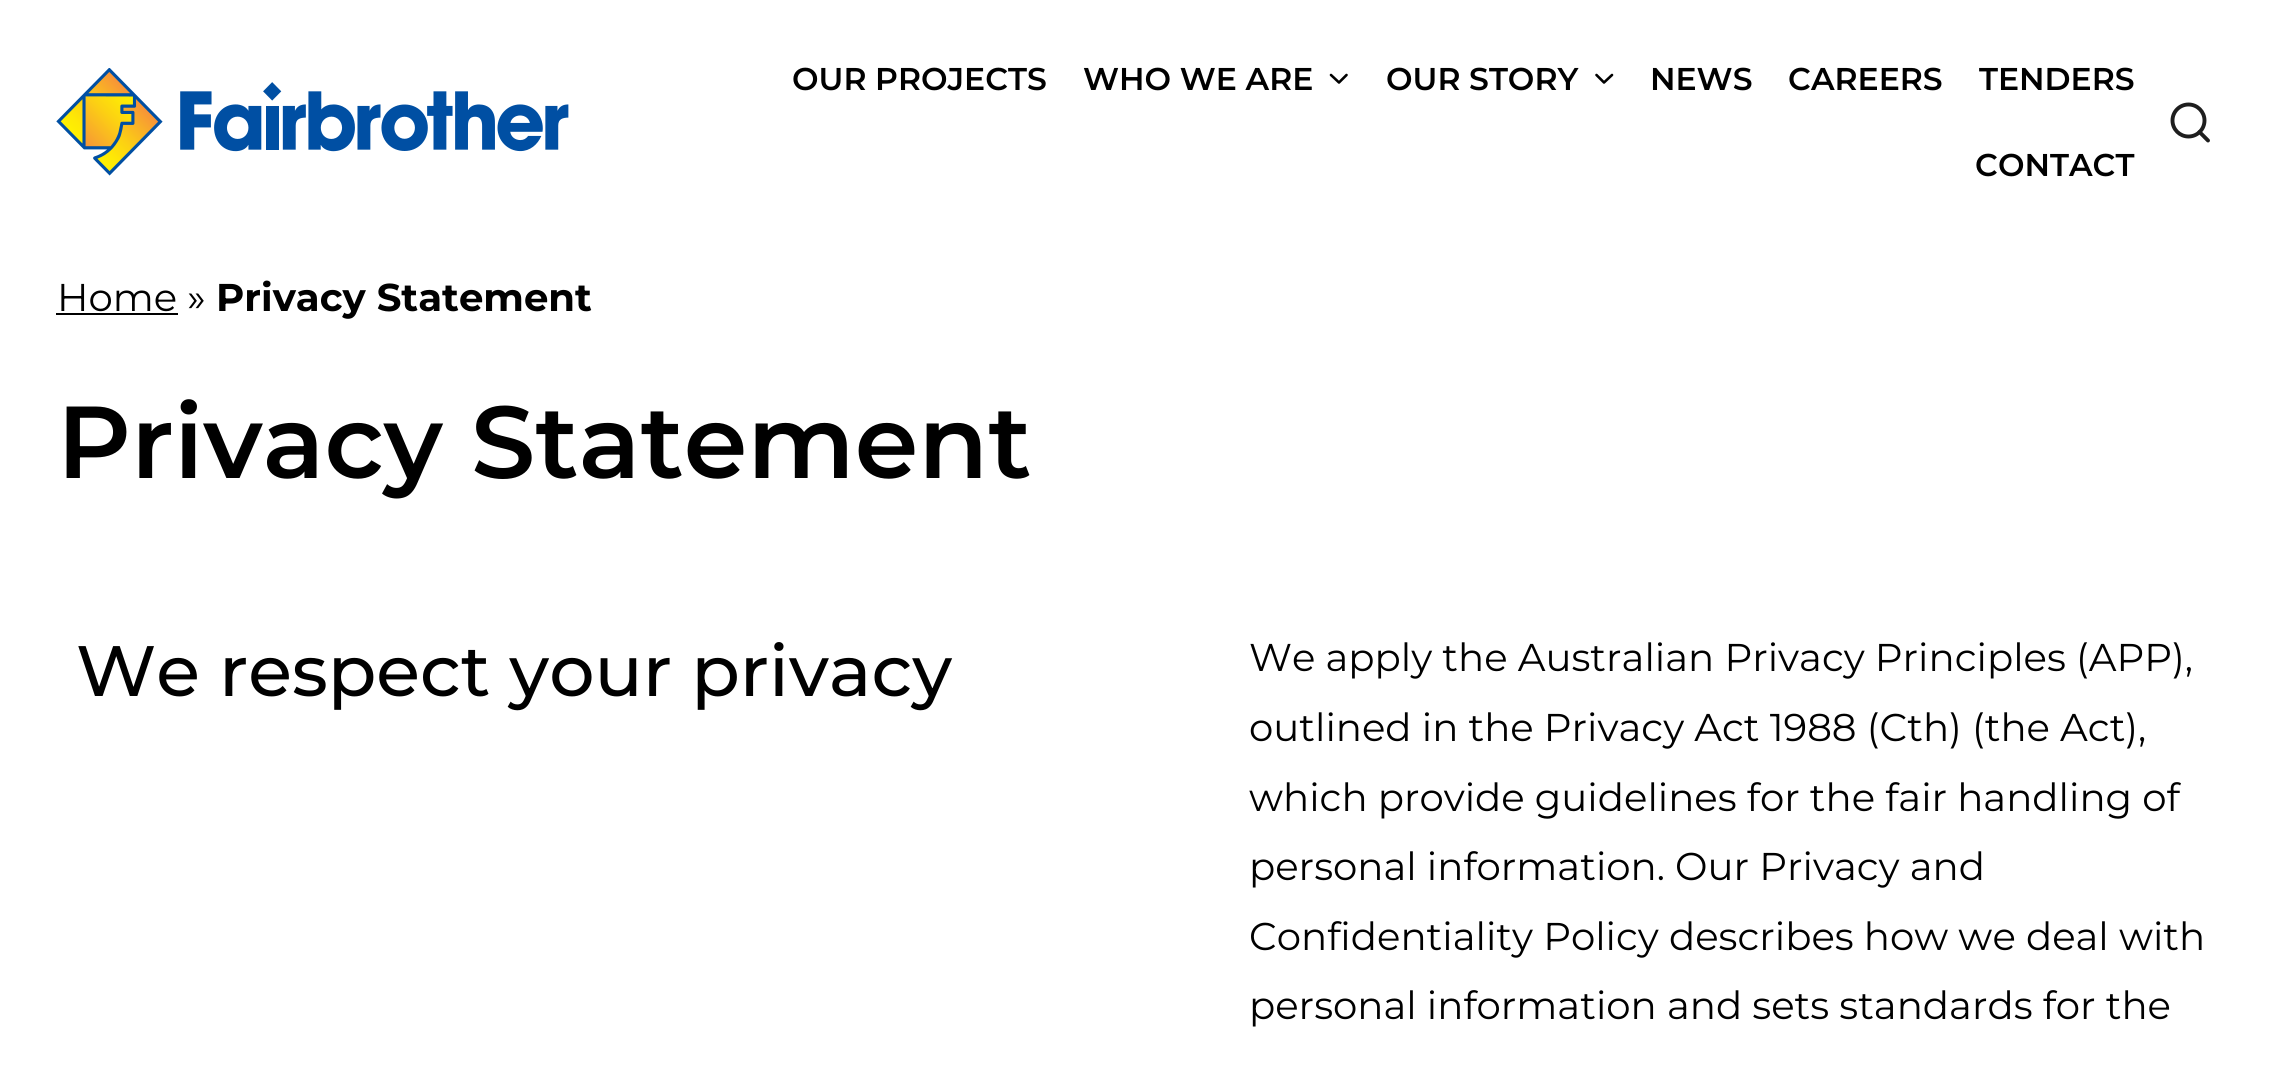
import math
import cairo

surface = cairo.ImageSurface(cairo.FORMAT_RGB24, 2281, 1078)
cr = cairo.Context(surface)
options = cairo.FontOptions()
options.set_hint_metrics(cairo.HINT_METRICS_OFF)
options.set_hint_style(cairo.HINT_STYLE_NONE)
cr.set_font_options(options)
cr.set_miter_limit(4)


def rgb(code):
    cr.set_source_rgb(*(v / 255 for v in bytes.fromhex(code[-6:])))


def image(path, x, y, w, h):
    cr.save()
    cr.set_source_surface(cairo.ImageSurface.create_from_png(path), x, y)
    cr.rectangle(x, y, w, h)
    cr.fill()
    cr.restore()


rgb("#ffffff")
cr.paint()
image("img/1.png", 56, 68, 513, 108)
cr.new_path()
cr.move_to(1331, 75)
cr.line_to(1339, 82.5)
cr.line_to(1346.5, 75)
rgb("#000000")
cr.set_line_width(2.6)
cr.set_line_cap(cairo.LINE_CAP_ROUND)
cr.set_line_join(cairo.LINE_JOIN_ROUND)
cr.stroke()
cr.new_path()
cr.move_to(1596.5, 75)
cr.line_to(1604, 82.5)
cr.line_to(1612, 75)
cr.stroke()
cr.arc(2188.5, 120.5, 16, 0, 2 * math.pi)
rgb("#1e1e1e")
cr.set_line_width(3.9)
cr.set_line_cap(cairo.LINE_CAP_BUTT)
cr.set_line_join(cairo.LINE_JOIN_MITER)
cr.stroke()
cr.new_path()
cr.move_to(2208, 140.5)
cr.line_to(2199.5, 132)
cr.set_line_cap(cairo.LINE_CAP_ROUND)
cr.set_line_join(cairo.LINE_JOIN_ROUND)
cr.stroke()
rgb("#000000")
cr.rectangle(56, 313, 122, 2)
cr.fill()
cr.select_font_face("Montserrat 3 Thin")
cr.set_font_size(31.5)
for x, y, s in [
    (792, 90, "OUR PROJECTS"),
    (1083, 90, "WHO WE ARE"),
    (1386, 90, "OUR STORY"),
    (1650, 90, "NEWS"),
    (1788, 90, "CAREERS"),
    (1979, 90, "TENDERS"),
    (1975, 176, "CONTACT"),
]:
    cr.move_to(x, y)
    cr.show_text(s)
cr.select_font_face("Montserrat Thin")
cr.set_font_size(38.7)
cr.move_to(57, 311)
cr.show_text("Home »")
cr.select_font_face("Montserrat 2 Thin")
cr.move_to(216, 311)
cr.show_text("Privacy Statement")
cr.select_font_face("Montserrat 3 Thin")
cr.set_font_size(102.1)
cr.move_to(57, 478)
cr.show_text("Privacy Statement")
cr.select_font_face("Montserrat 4 Thin")
cr.set_font_size(71.3)
cr.move_to(76, 696)
cr.show_text("We respect your privacy")
cr.select_font_face("Montserrat Thin")
cr.set_font_size(38.7)
for x, y, s in [
    (1249, 671, "We apply the Australian Privacy Principles (APP),"),
    (1249, 741, "outlined in the Privacy Act 1988 (Cth) (the Act),"),
    (1249, 811, "which provide guidelines for the fair handling of"),
    (1249, 880, "personal information. Our Privacy and"),
    (1249, 950, "Confidentiality Policy describes how we deal with"),
    (1249, 1019, "personal information and sets standards for the"),
]:
    cr.move_to(x, y)
    cr.show_text(s)
surface.write_to_png("page.png")
